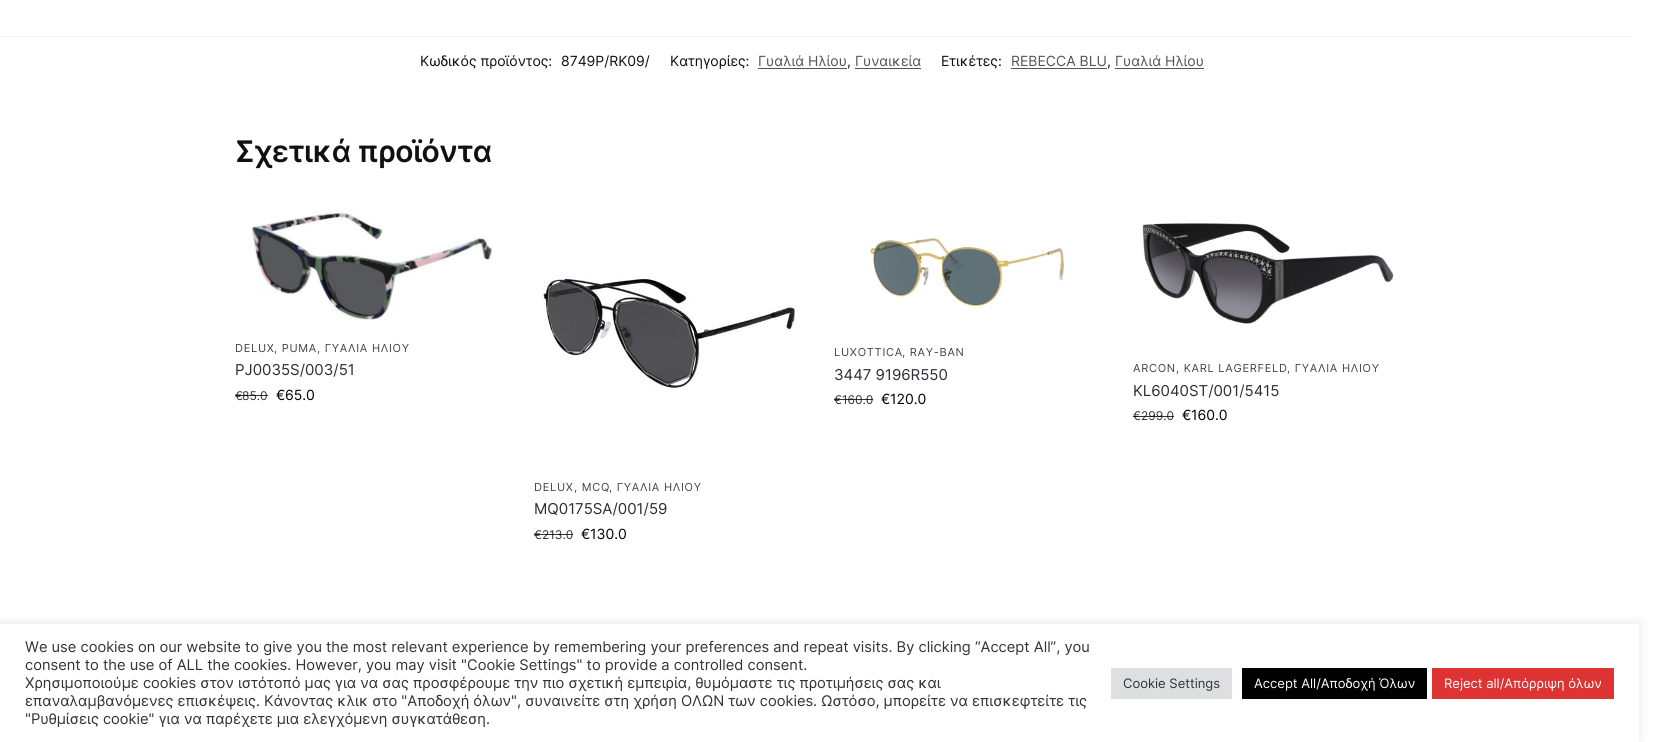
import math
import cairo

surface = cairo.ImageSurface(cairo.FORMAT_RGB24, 1654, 742)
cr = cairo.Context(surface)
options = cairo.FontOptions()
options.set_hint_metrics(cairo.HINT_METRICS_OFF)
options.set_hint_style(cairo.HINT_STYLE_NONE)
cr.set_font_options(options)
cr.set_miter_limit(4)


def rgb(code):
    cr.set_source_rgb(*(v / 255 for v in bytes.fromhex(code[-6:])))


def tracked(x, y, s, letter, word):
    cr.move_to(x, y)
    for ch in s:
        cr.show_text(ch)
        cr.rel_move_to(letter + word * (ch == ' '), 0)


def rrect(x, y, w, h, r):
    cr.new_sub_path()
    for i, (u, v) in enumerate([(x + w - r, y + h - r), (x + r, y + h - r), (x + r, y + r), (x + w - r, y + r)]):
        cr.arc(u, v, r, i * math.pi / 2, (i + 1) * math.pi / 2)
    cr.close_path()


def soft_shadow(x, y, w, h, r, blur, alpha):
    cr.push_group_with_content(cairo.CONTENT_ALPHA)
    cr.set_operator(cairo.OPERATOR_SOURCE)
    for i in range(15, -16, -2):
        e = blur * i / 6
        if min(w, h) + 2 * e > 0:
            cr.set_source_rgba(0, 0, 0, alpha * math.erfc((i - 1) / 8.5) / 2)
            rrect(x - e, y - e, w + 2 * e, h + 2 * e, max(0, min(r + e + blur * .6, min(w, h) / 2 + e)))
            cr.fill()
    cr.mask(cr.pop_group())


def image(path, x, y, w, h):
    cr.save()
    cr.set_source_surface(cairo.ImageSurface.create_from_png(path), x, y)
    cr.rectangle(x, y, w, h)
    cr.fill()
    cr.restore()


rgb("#ffffff")
cr.paint()
for x, y, w, h, color in [
    (0, 36, 1632, 1, "#f2f2f2"),
    (758, 68, 89, 1, "#555555"),
    (855, 68, 66, 1, "#555555"),
    (1011, 68, 96, 1, "#555555"),
    (1115, 68, 89, 1, "#555555"),
]:
    rgb(color)
    cr.rectangle(x, y, w, h)
    cr.fill()
image("img/1.png", 251, 212, 241, 108)
image("img/2.png", 870, 237, 194, 74)
image("img/3.png", 1142, 223, 252, 101)
image("img/4.png", 543, 278, 253, 113)
rgb("#acabab")
soft_shadow(0, 623, 1639, 118, 0, 5, 0.3)
for x, y, w, h, color in [
    (0, 624, 1639, 118, "#ffffff"),
    (1111, 668, 121, 31, "#dedfe0"),
    (1242, 668, 185, 31, "#020000"),
    (1432, 668, 182, 31, "#dd3333"),
]:
    rgb(color)
    cr.rectangle(x, y, w, h)
    cr.fill()
cr.select_font_face("Inter")
cr.set_font_size(14)
rgb("#111111")
for x, y, s in [
    (420, 66, "Κωδικός προϊόντος:"),
    (561, 66, "8749P/RK09/"),
    (670, 66, "Κατηγορίες:"),
]:
    cr.move_to(x, y)
    cr.show_text(s)
rgb("#555555")
cr.move_to(758, 66)
cr.show_text("Γυαλιά Ηλίου")
rgb("#111111")
cr.move_to(847, 66)
cr.show_text(",")
rgb("#555555")
cr.move_to(855, 66)
cr.show_text("Γυναικεία")
rgb("#111111")
cr.move_to(941, 66)
cr.show_text("Ετικέτες:")
rgb("#555555")
cr.move_to(1011, 66)
cr.show_text("REBECCA BLU")
rgb("#111111")
cr.move_to(1107, 66)
cr.show_text(",")
rgb("#555555")
cr.move_to(1115, 66)
cr.show_text("Γυαλιά Ηλίου")
cr.select_font_face("Inter SemiBold")
cr.set_font_size(30)
rgb("#111111")
tracked(235, 162, "Σχετικά προϊόντα", -0.5, 0)
cr.select_font_face("Inter")
cr.set_font_size(11)
rgb("#444444")
for x, y, s in [
    (235, 352, "DELUX"),
    (274, 352, ", PUMA"),
    (317, 352, ", ΓΥΑΛΙΑ ΗΛΙΟΥ"),
]:
    tracked(x, y, s, 0.75, 0)
cr.set_font_size(15)
rgb("#2c2d33")
cr.move_to(235, 375)
cr.show_text("PJ0035S/003/51")
cr.set_font_size(12)
rgb("#333333")
cr.move_to(235, 400)
cr.show_text("€")
cr.set_source_rgba(0, 0, 0, 0.8)
cr.rectangle(235, 395, 7, 1)
cr.fill()
rgb("#333333")
cr.move_to(242, 400)
cr.show_text("85.0")
cr.set_source_rgba(0, 0, 0, 0.8)
cr.rectangle(242, 395, 26, 1)
cr.fill()
cr.set_font_size(14)
rgb("#000000")
cr.move_to(276, 400)
cr.show_text("€")
cr.move_to(285, 400)
cr.show_text("65.0")
cr.set_font_size(11)
rgb("#444444")
tracked(834, 356, "LUXOTTICA", 0.75, 0)
tracked(902, 356, ", RAY-BAN", 0.75, 0)
cr.set_font_size(15)
rgb("#2c2d33")
cr.move_to(834, 380)
cr.show_text("3447 9196R550")
cr.set_font_size(12)
rgb("#333333")
cr.move_to(834, 404)
cr.show_text("€")
cr.move_to(842, 404)
cr.show_text("160.0")
cr.set_source_rgba(0, 0, 0, 0.8)
cr.rectangle(842, 399, 31, 1)
cr.fill()
cr.rectangle(834, 399, 8, 1)
cr.fill()
cr.set_font_size(14)
rgb("#000000")
cr.move_to(881, 404)
cr.show_text("€")
cr.move_to(890, 404)
cr.show_text("120.0")
cr.set_font_size(11)
rgb("#444444")
for x, y, s in [
    (1133, 372, "ARCON"),
    (1176, 372, ", KARL LAGERFELD"),
    (1287, 372, ", ΓΥΑΛΙΑ ΗΛΙΟΥ"),
]:
    tracked(x, y, s, 0.75, 0)
cr.set_font_size(15)
rgb("#2c2d33")
cr.move_to(1133, 396)
cr.show_text("KL6040ST/001/5415")
cr.set_font_size(12)
rgb("#333333")
cr.move_to(1133, 420)
cr.show_text("€")
cr.set_source_rgba(0, 0, 0, 0.8)
cr.rectangle(1133, 416, 8, 1)
cr.fill()
rgb("#333333")
cr.move_to(1141, 420)
cr.show_text("299.0")
cr.set_source_rgba(0, 0, 0, 0.8)
cr.rectangle(1141, 416, 33, 1)
cr.fill()
cr.set_font_size(14)
rgb("#000000")
cr.move_to(1182, 420)
cr.show_text("€")
cr.move_to(1191, 420)
cr.show_text("160.0")
cr.set_font_size(11)
rgb("#444444")
for x, y, s in [
    (534, 491, "DELUX"),
    (574, 491, ", MCQ"),
    (609, 491, ", ΓΥΑΛΙΑ ΗΛΙΟΥ"),
]:
    tracked(x, y, s, 0.75, 0)
cr.set_font_size(15)
rgb("#2c2d33")
cr.move_to(534, 514)
cr.show_text("MQ0175SA/001/59")
cr.set_font_size(12)
rgb("#333333")
cr.move_to(534, 539)
cr.show_text("€")
cr.move_to(542, 539)
cr.show_text("213.0")
cr.set_source_rgba(0, 0, 0, 0.8)
cr.rectangle(542, 534, 31, 1)
cr.fill()
cr.rectangle(534, 534, 8, 1)
cr.fill()
cr.set_font_size(14)
rgb("#000000")
cr.move_to(581, 539)
cr.show_text("€")
cr.move_to(590, 539)
cr.show_text("130.0")
cr.set_font_size(14.67)
rgb("#333333")
for x, y, s in [
    (25, 652, "We use cookies on our website to give you the most relevant experience by remembering your preferences and repeat visits. By clicking “Accept All”, you"),
    (25, 670, "consent to the use of ALL the cookies. However, you may visit \"Cookie Settings\" to provide a controlled consent."),
    (25, 688, "Χρησιμοποιούμε cookies στον ιστότοπό μας για να σας προσφέρουμε την πιο σχετική εμπειρία, θυμόμαστε τις προτιμήσεις σας και"),
    (25, 706, "επαναλαμβανόμενες επισκέψεις. Κάνοντας κλικ στο \"Αποδοχή όλων\", συναινείτε στη χρήση ΟΛΩΝ των cookies. Ωστόσο, μπορείτε να επισκεφτείτε τις"),
    (25, 724, "\"Ρυθμίσεις cookie\" για να παρέχετε μια ελεγχόμενη συγκατάθεση."),
]:
    cr.move_to(x, y)
    cr.show_text(s)
cr.set_font_size(13)
cr.move_to(1123, 688)
cr.show_text("Cookie Settings")
rgb("#ffffff")
cr.move_to(1254, 688)
cr.show_text("Accept All/Αποδοχή Όλων")
cr.move_to(1444, 688)
cr.show_text("Reject all/Απόρριψη όλων")
surface.write_to_png("page.png")
